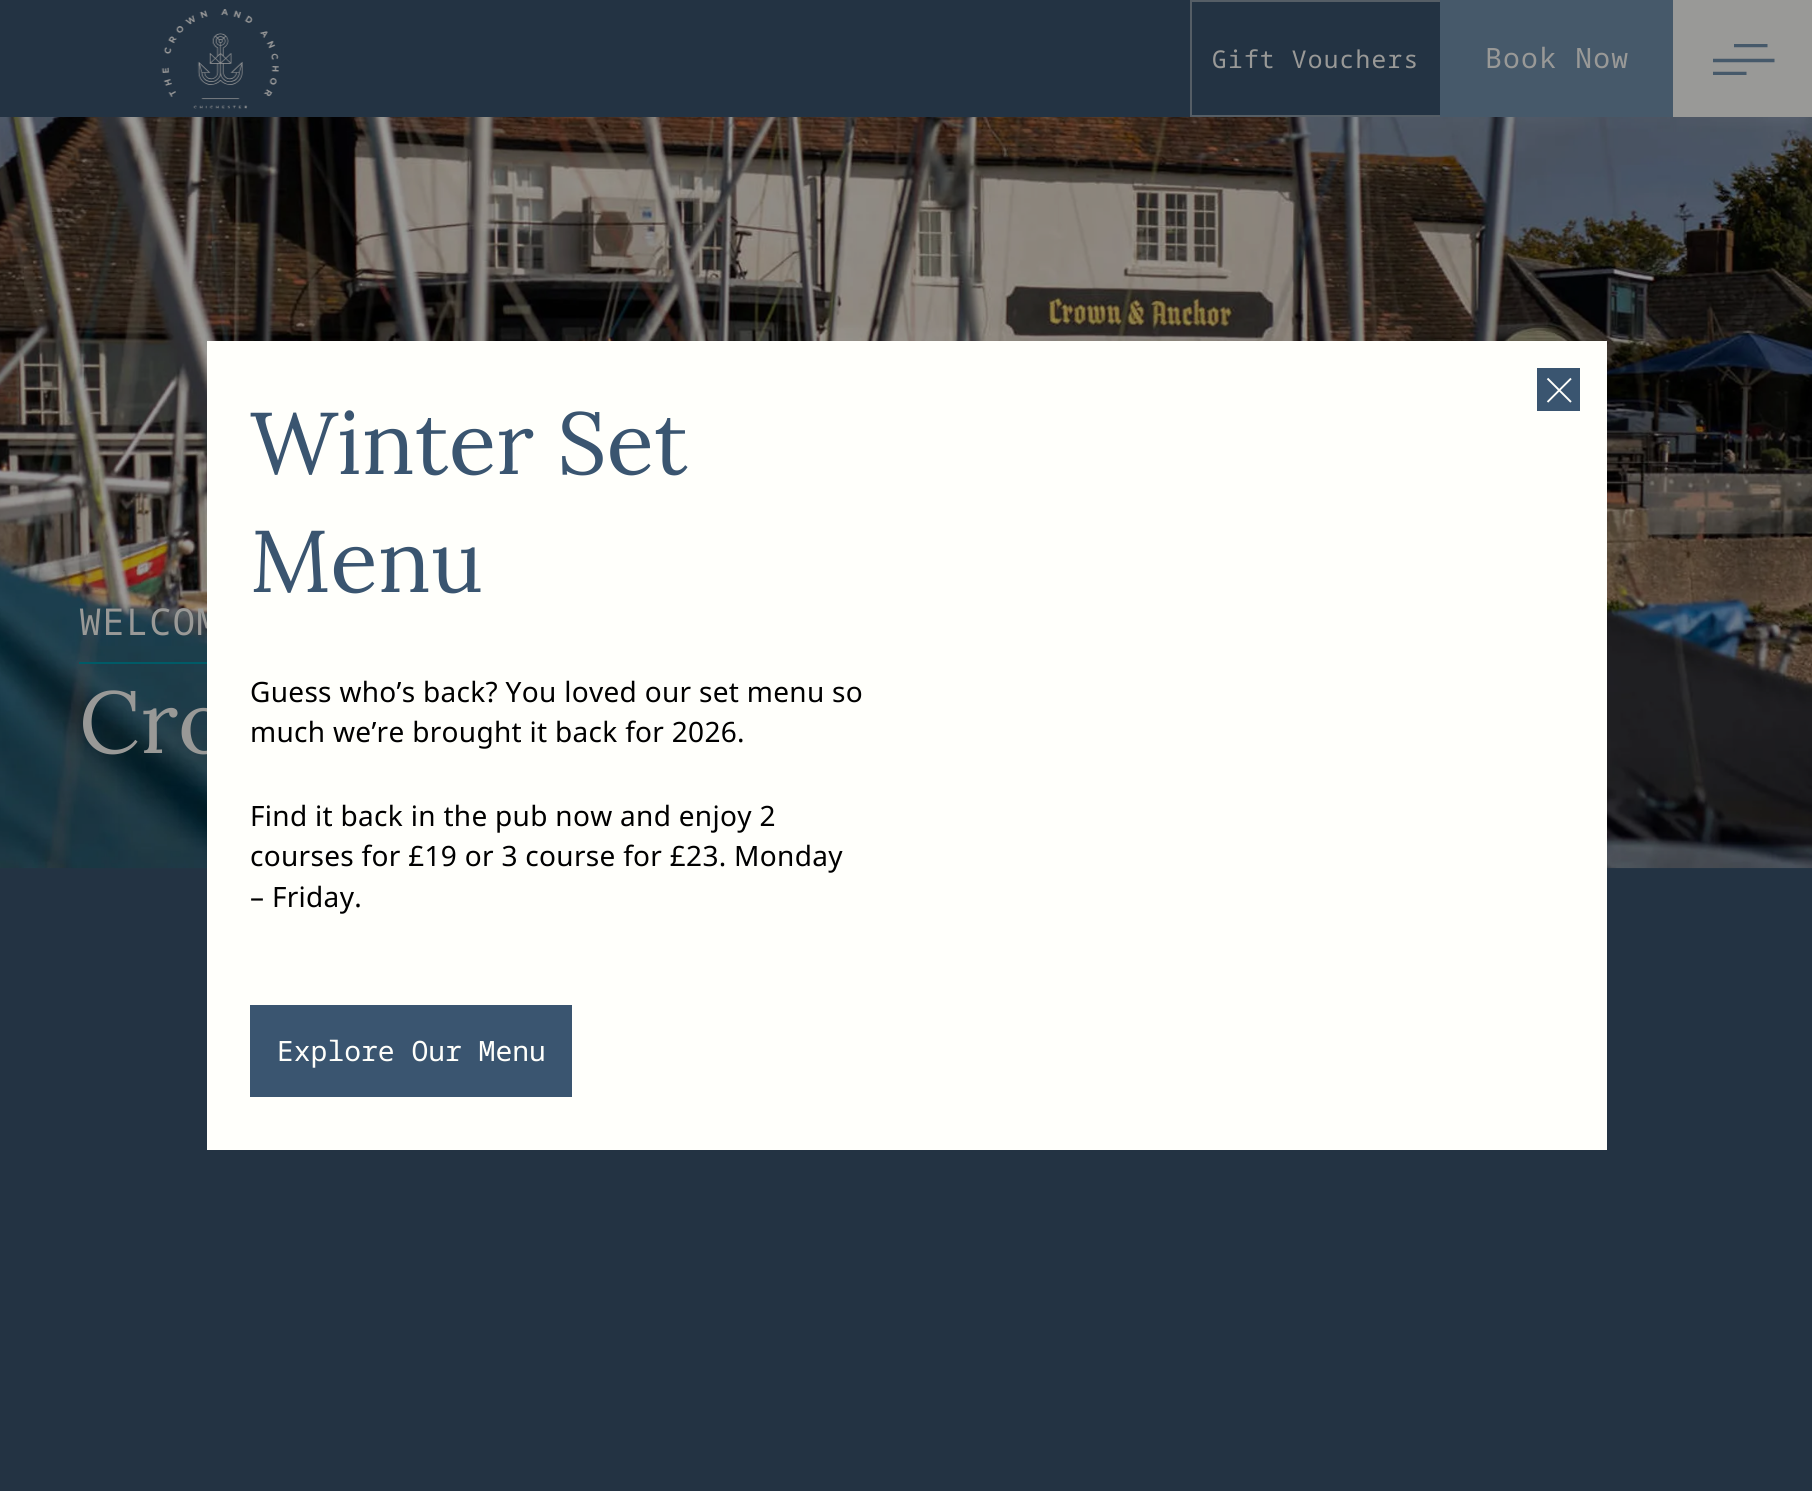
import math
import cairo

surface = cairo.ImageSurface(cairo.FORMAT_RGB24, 1812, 1491)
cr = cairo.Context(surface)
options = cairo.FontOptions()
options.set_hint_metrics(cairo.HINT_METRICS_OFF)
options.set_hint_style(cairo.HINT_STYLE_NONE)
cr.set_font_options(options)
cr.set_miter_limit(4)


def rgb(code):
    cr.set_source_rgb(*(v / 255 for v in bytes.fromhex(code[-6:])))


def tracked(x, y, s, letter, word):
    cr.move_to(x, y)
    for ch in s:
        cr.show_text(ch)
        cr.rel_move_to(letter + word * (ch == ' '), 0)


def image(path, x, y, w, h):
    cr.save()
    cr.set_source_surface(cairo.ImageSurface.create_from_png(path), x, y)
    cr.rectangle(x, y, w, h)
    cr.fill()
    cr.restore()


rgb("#233343")
cr.paint()
image("img/1.png", 161, 9, 118, 100)
cr.rectangle(1191, 1, 250, 115)
rgb("#555e66")
cr.stroke()
rgb("#46596a")
cr.rectangle(1440, 0, 233, 117)
cr.fill()
rgb("#999997")
cr.rectangle(1673, 0, 139, 117)
cr.fill()
cr.save()
cr.rectangle(1713, 44, 62, 31)
cr.clip()
cr.new_path()
cr.move_to(1734, 45.5)
cr.line_to(1767.5, 45.5)
rgb("#46596a")
cr.set_line_width(3.5)
cr.stroke()
cr.restore()
cr.new_path()
cr.move_to(1713, 60.5)
cr.line_to(1774.5, 60.5)
rgb("#46596a")
cr.set_line_width(3.5)
cr.stroke()
cr.save()
cr.rectangle(1713, 44, 62, 31)
cr.clip()
cr.new_path()
cr.move_to(1713, 73.5)
cr.line_to(1746.5, 73.5)
cr.stroke()
cr.restore()
image("img/2.png", 0, 117, 1812, 752)
rgb("#005b67")
cr.rectangle(79, 662, 128, 2)
cr.fill()
cr.select_font_face("Noto Sans Mono")
cr.set_font_size(24.5)
rgb("#999997")
tracked(1212, 68, "Gift Vouchers", 1.25, 0)
cr.set_font_size(28)
tracked(1485, 68, "Book Now", 1.25, 0)
cr.set_font_size(37)
tracked(79, 635, "WELCOM", 1.25, 0)
cr.select_font_face("Lora")
cr.set_font_size(87.5)
cr.move_to(79, 753)
cr.show_text("Cro")
rgb("#fffffb")
cr.rectangle(207, 341, 1400, 809)
cr.fill()
rgb("#3a5570")
cr.rectangle(1537, 368, 43, 43)
cr.fill()
cr.new_path()
cr.move_to(1547.5, 378.5)
cr.line_to(1571, 402)
cr.move_to(1571, 378.5)
cr.line_to(1547.5, 402)
rgb("#fffffb")
cr.set_line_width(1.9)
cr.stroke()
rgb("#3a5570")
cr.move_to(250, 474)
cr.show_text("Winter Set")
cr.move_to(250, 592)
cr.show_text("Menu")
cr.select_font_face("Noto Sans")
cr.set_font_size(28)
rgb("#000000")
for x, y, s in [
    (250, 702, "Guess who’s back? You loved our set menu so"),
    (250, 742, "much we’re brought it back for 2026."),
    (250, 826, "Find it back in the pub now and enjoy 2"),
    (250, 866, "courses for £19 or 3 course for £23. Monday"),
    (250, 907, "– Friday."),
]:
    tracked(x, y, s, 0.3, 0)
rgb("#3a5570")
cr.rectangle(250, 1005, 322, 92)
cr.fill()
cr.select_font_face("Noto Sans Mono")
rgb("#fffffb")
cr.move_to(277, 1061)
cr.show_text("Explore Our Menu")
surface.write_to_png("page.png")
